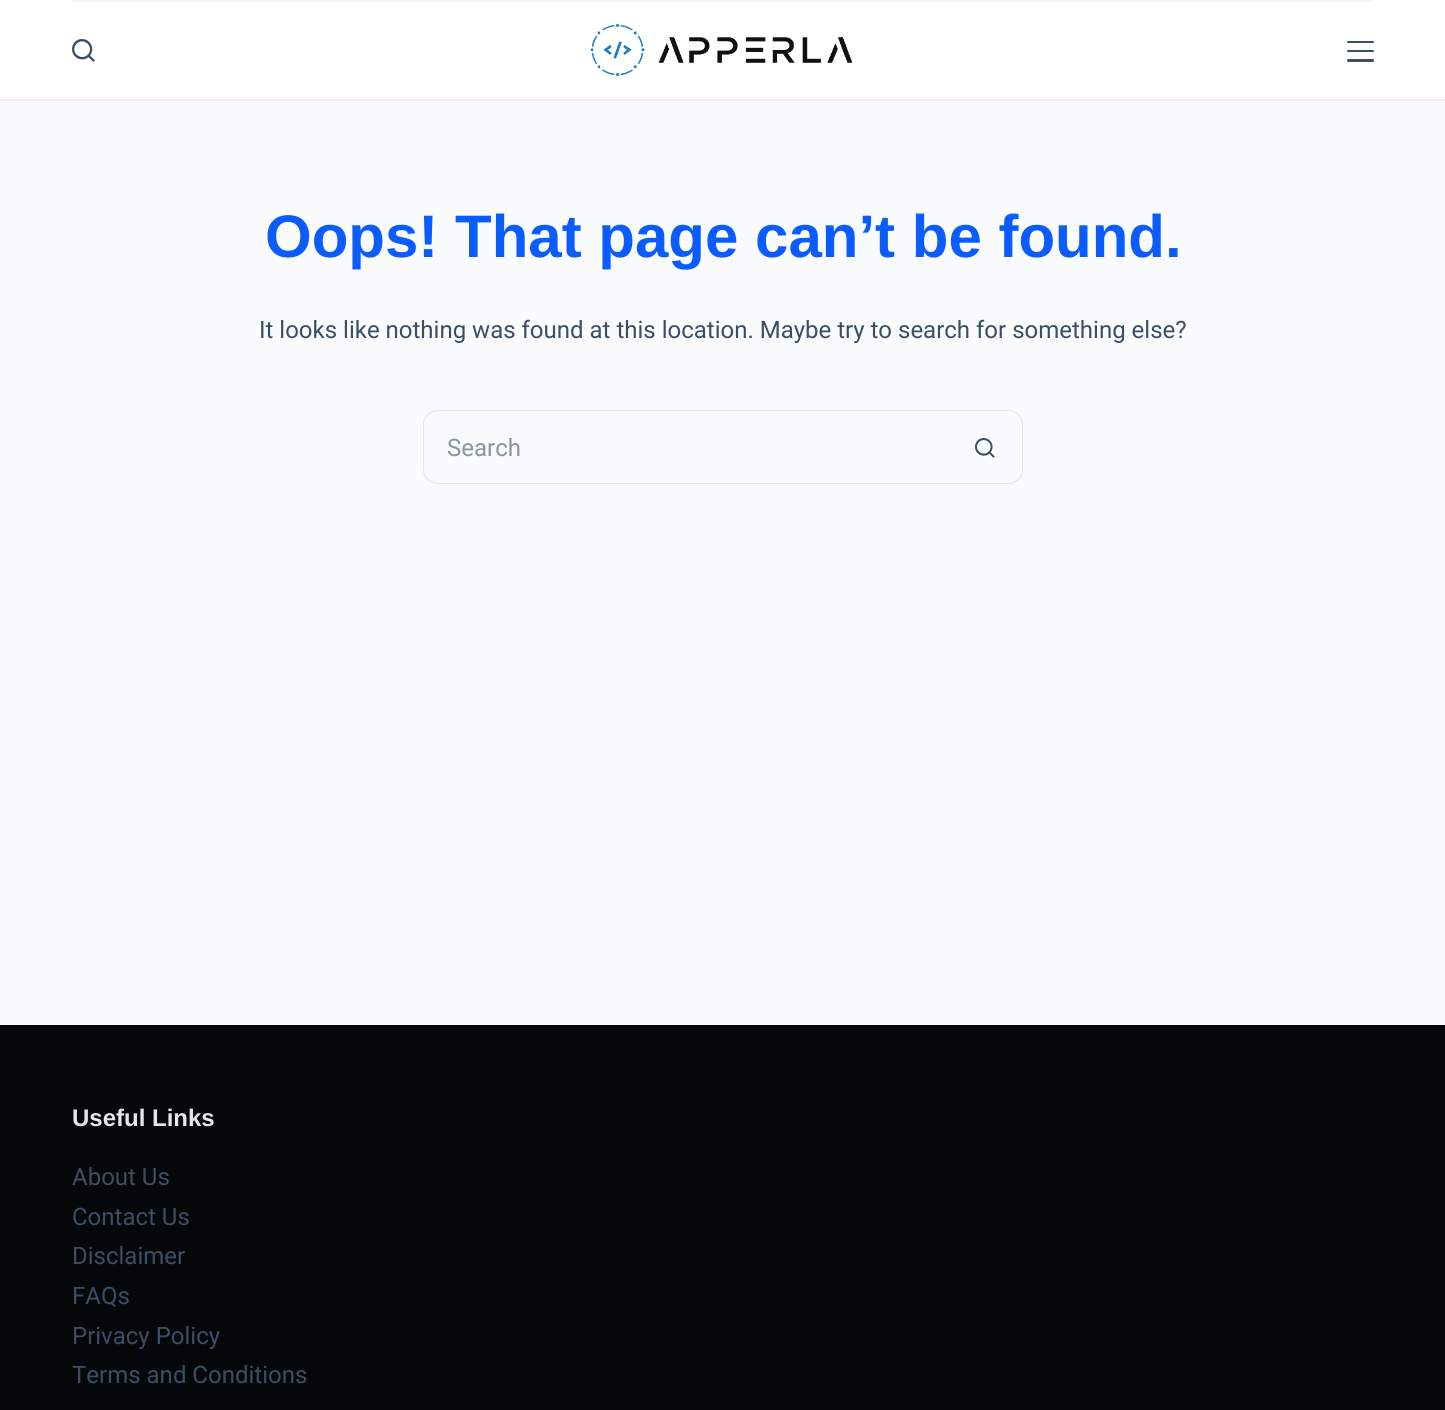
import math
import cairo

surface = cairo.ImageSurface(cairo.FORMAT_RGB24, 1445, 1410)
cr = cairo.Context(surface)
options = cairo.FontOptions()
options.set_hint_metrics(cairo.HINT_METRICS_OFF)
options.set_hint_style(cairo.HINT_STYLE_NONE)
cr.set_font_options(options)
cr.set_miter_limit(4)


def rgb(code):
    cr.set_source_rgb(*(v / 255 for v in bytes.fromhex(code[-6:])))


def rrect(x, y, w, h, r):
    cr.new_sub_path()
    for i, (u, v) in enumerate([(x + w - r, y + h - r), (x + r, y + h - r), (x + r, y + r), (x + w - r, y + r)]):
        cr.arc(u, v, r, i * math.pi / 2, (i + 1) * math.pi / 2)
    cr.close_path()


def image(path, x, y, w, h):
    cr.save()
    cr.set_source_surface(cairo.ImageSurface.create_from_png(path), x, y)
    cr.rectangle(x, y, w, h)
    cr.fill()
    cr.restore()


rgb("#fafbfc")
cr.paint()
for x, y, w, h, color in [
    (0, 0, 1445, 99, "#ffffff"),
    (0, 99, 1445, 2, "#ffe8db"),
    (72, 0, 1302, 2, "#f4f5f6"),
]:
    rgb(color)
    cr.rectangle(x, y, w, h)
    cr.fill()
image("img/1.png", 72, 39, 23, 23)
image("img/2.png", 590, 23, 263, 54)
rgb("#3a4f66")
rrect(1347, 41, 27, 2, 1)
cr.fill()
rrect(1347, 50, 27, 2, 1)
cr.fill()
rrect(1347, 59, 27, 3, 1.5)
cr.fill()
rgb("#e1e8ed")
cr.set_fill_rule(cairo.FILL_RULE_EVEN_ODD)
cr.new_path()
cr.move_to(438, 410)
cr.line_to(948, 410)
cr.line_to(948, 484)
cr.line_to(438, 484)
cr.curve_to(430, 484, 423, 478, 423, 470)
cr.line_to(423, 424)
cr.curve_to(423, 416, 430, 410, 438, 410)
cr.close_path()
cr.move_to(438, 411)
cr.line_to(948, 411)
cr.line_to(948, 483)
cr.line_to(438, 483)
cr.curve_to(431, 483, 424, 477, 424, 470)
cr.line_to(424, 424)
cr.curve_to(424, 417, 431, 411, 438, 411)
cr.close_path()
cr.fill()
cr.new_path()
cr.move_to(948, 410)
cr.line_to(1008, 410)
cr.curve_to(1016, 410, 1023, 416, 1023, 424)
cr.line_to(1023, 470)
cr.curve_to(1023, 478, 1016, 484, 1008, 484)
cr.line_to(948, 484)
cr.close_path()
cr.move_to(948, 411)
cr.line_to(1008, 411)
cr.curve_to(1015, 411, 1022, 417, 1022, 424)
cr.line_to(1022, 470)
cr.curve_to(1022, 477, 1015, 483, 1008, 483)
cr.line_to(948, 483)
cr.close_path()
cr.fill()
image("img/3.png", 975, 438, 20, 20)
rgb("#050709")
cr.rectangle(0, 1025, 1445, 385)
cr.fill()
cr.select_font_face("Liberation Sans", cairo.FONT_SLANT_NORMAL, cairo.FONT_WEIGHT_BOLD)
cr.set_font_size(60)
rgb("#0b5cff")
cr.move_to(265, 257)
cr.show_text("Oops! That page can’t be found.")
cr.select_font_face("Roboto")
cr.set_font_size(24)
rgb("#3a4f66")
cr.move_to(259, 338)
cr.show_text("It looks like nothing was found at this location. Maybe try to search for something else?")
rgb("#8794a2")
cr.move_to(447, 456)
cr.show_text("Search")
cr.select_font_face("Liberation Sans", cairo.FONT_SLANT_NORMAL, cairo.FONT_WEIGHT_BOLD)
rgb("#e1e8ed")
cr.move_to(72, 1126)
cr.show_text("Useful Links")
cr.select_font_face("Roboto")
rgb("#3a4f66")
for x, y, s in [
    (72, 1185, "About Us"),
    (72, 1225, "Contact Us"),
    (72, 1264, "Disclaimer"),
    (72, 1304, "FAQs"),
    (72, 1344, "Privacy Policy"),
    (72, 1383, "Terms and Conditions"),
]:
    cr.move_to(x, y)
    cr.show_text(s)
surface.write_to_png("page.png")
